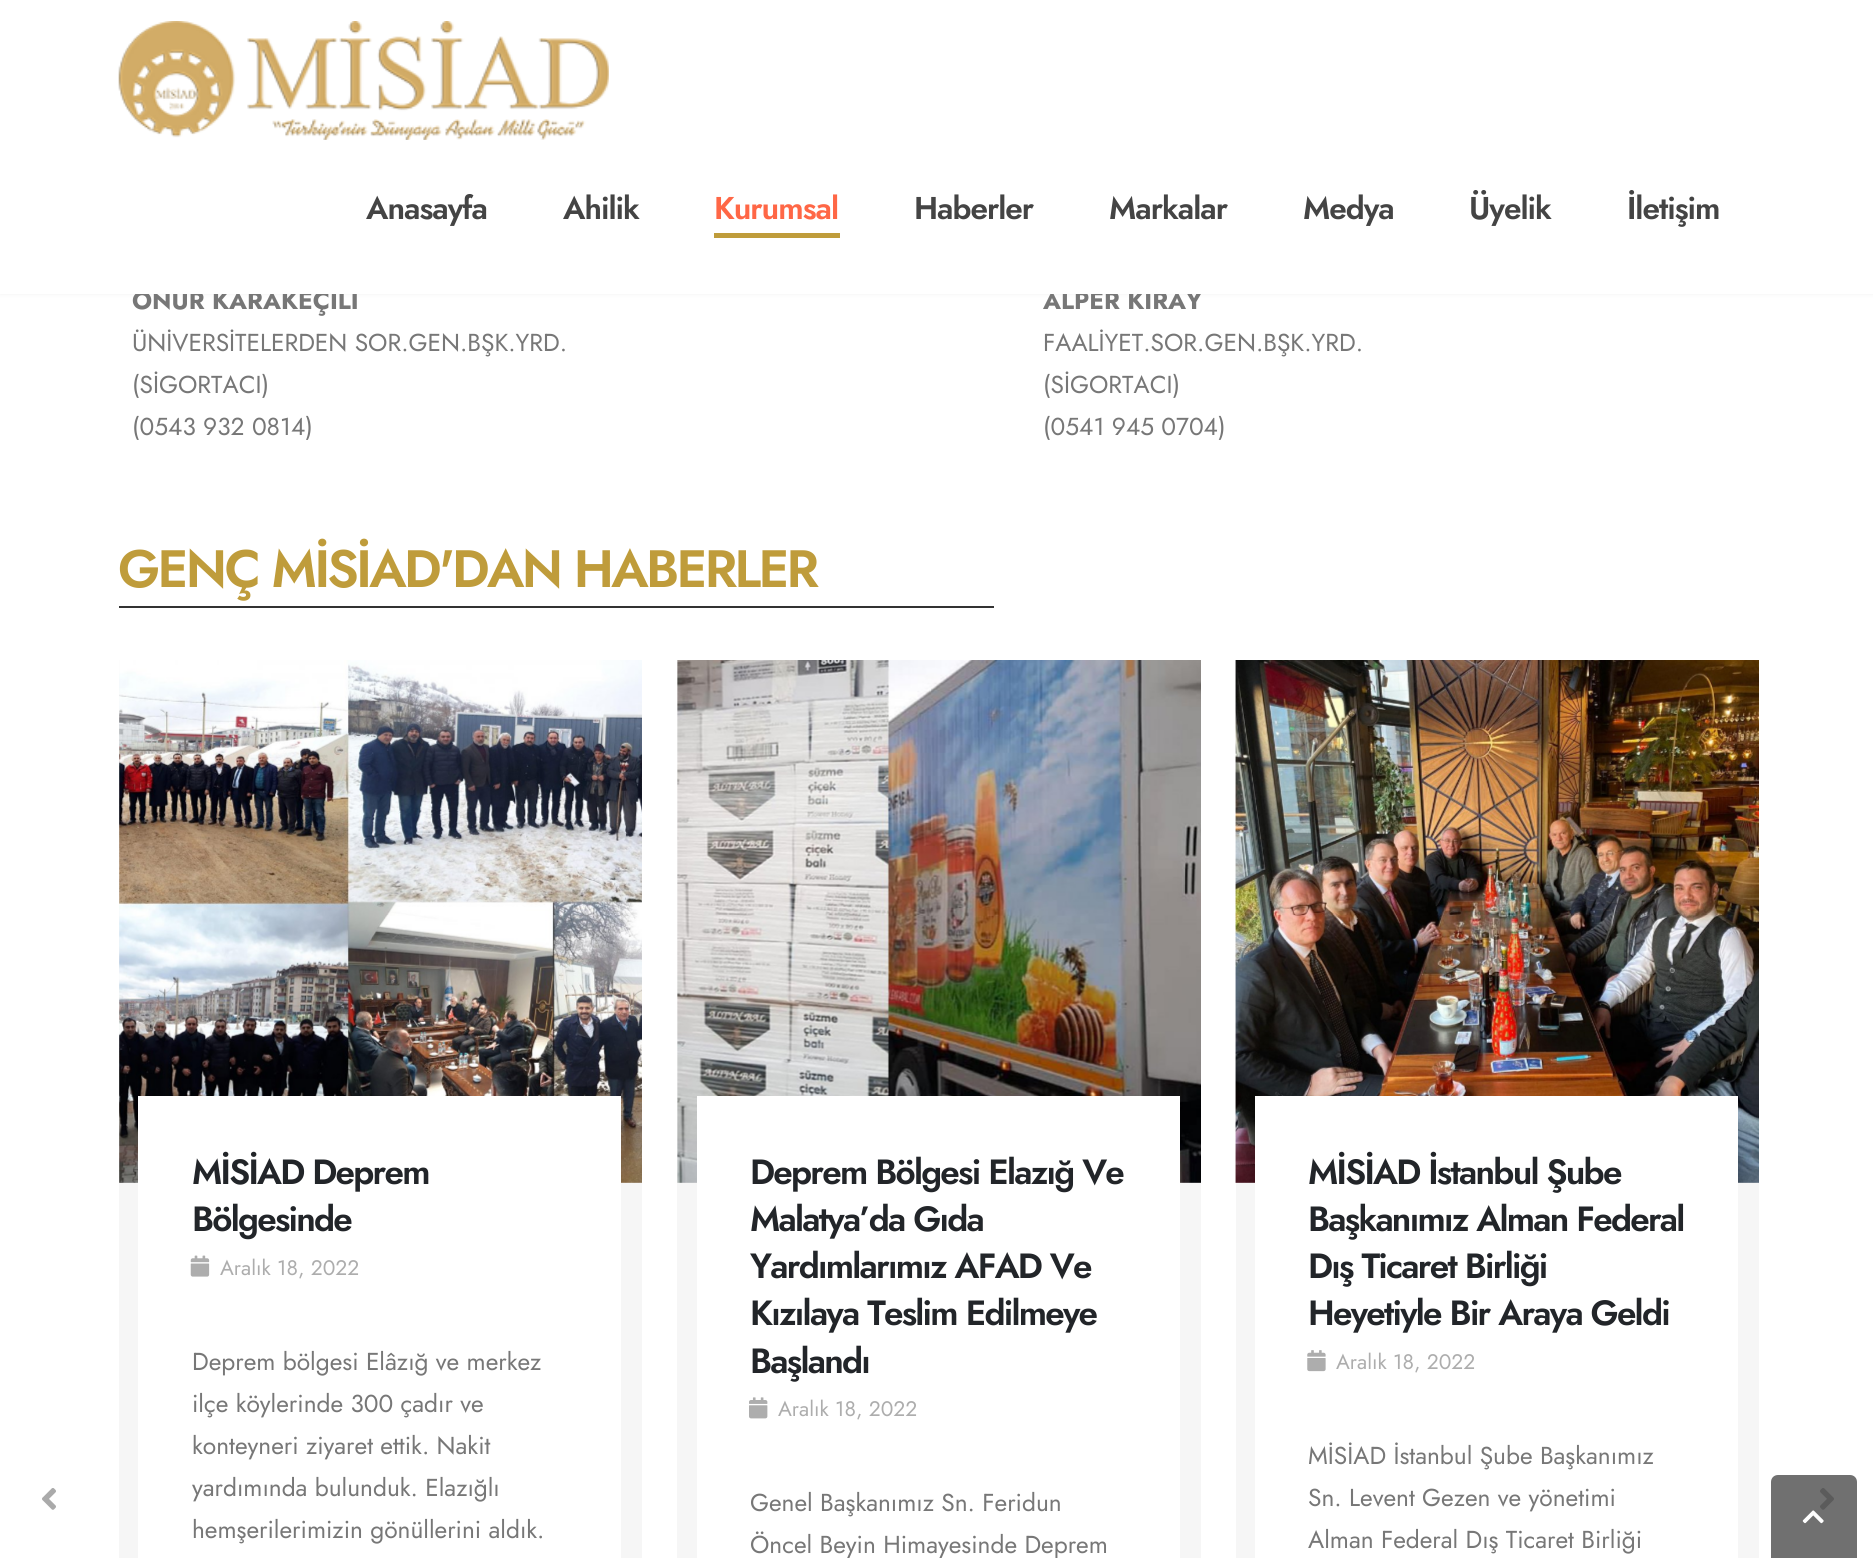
import math
import cairo

surface = cairo.ImageSurface(cairo.FORMAT_RGB24, 1873, 1558)
cr = cairo.Context(surface)
options = cairo.FontOptions()
options.set_hint_metrics(cairo.HINT_METRICS_OFF)
options.set_hint_style(cairo.HINT_STYLE_NONE)
cr.set_font_options(options)
cr.set_miter_limit(4)


def rgb(code):
    cr.set_source_rgb(*(v / 255 for v in bytes.fromhex(code[-6:])))


def tracked(x, y, s, letter, word):
    cr.move_to(x, y)
    for ch in s:
        cr.show_text(ch)
        cr.rel_move_to(letter + word * (ch == ' '), 0)


def rrect(x, y, w, h, r):
    cr.new_sub_path()
    for i, (u, v) in enumerate([(x + w - r, y + h - r), (x + r, y + h - r), (x + r, y + r), (x + w - r, y + r)]):
        cr.arc(u, v, r, i * math.pi / 2, (i + 1) * math.pi / 2)
    cr.close_path()


def soft_shadow(x, y, w, h, r, blur, alpha):
    cr.push_group_with_content(cairo.CONTENT_ALPHA)
    cr.set_operator(cairo.OPERATOR_SOURCE)
    for i in range(15, -16, -2):
        e = blur * i / 6
        if min(w, h) + 2 * e > 0:
            cr.set_source_rgba(0, 0, 0, alpha * math.erfc((i - 1) / 8.5) / 2)
            rrect(x - e, y - e, w + 2 * e, h + 2 * e, max(0, min(r + e + blur * .6, min(w, h) / 2 + e)))
            cr.fill()
    cr.mask(cr.pop_group())


def image(path, x, y, w, h):
    cr.save()
    cr.set_source_surface(cairo.ImageSurface.create_from_png(path), x, y)
    cr.rectangle(x, y, w, h)
    cr.fill()
    cr.restore()


rgb("#ffffff")
cr.paint()
rgb("#000000")
soft_shadow(0, 0, 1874, 294, 0, 2.5, 0.06)
rgb("#333333")
cr.rectangle(119, 606, 875, 2)
cr.fill()
image("img/2.png", 42, 1488, 14, 22)
rgb("#f6f6f6")
cr.rectangle(119, 660, 523, 898)
cr.fill()
image("img/3.png", 119, 660, 523, 523)
rgb("#ffffff")
cr.rectangle(138, 1096, 483, 462)
cr.fill()
image("img/4.png", 190, 1255, 20, 22)
rgb("#f6f6f6")
cr.rectangle(677, 660, 524, 898)
cr.fill()
image("img/5.png", 677, 660, 524, 523)
rgb("#ffffff")
cr.rectangle(697, 1096, 483, 462)
cr.fill()
image("img/6.png", 749, 1397, 19, 22)
rgb("#f6f6f6")
cr.rectangle(1236, 1182, 523, 376)
cr.fill()
image("img/7.png", 1235, 660, 524, 523)
rgb("#ffffff")
cr.rectangle(1255, 1096, 483, 462)
cr.fill()
image("img/8.png", 1307, 1350, 19, 22)
image("img/9.png", 1820, 1488, 14, 22)
cr.set_source_rgba(0.251, 0.251, 0.251, 0.75)
cr.new_path()
cr.move_to(1778, 1475)
cr.line_to(1850, 1475)
cr.curve_to(1854, 1475, 1857, 1478, 1857, 1482)
cr.line_to(1857, 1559)
cr.line_to(1771, 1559)
cr.line_to(1771, 1482)
cr.curve_to(1771, 1478, 1774, 1475, 1778, 1475)
cr.close_path()
cr.fill()
image("img/10.png", 1802, 1510, 22, 14)
cr.select_font_face("Jost", cairo.FONT_SLANT_NORMAL, cairo.FONT_WEIGHT_BOLD)
cr.set_font_size(24.5)
rgb("#777777")
cr.move_to(132, 309)
cr.show_text("ONUR KARAKEÇİLİ")
cr.select_font_face("Jost")
for x, y, s in [
    (132, 351, "ÜNİVERSİTELERDEN SOR.GEN.BŞK.YRD."),
    (132, 393, "(SİGORTACI)"),
    (132, 435, "(0543 932 0814)"),
]:
    cr.move_to(x, y)
    cr.show_text(s)
cr.select_font_face("Jost", cairo.FONT_SLANT_NORMAL, cairo.FONT_WEIGHT_BOLD)
cr.move_to(1043, 309)
cr.show_text("ALPER KIRAY")
rgb("#ffffff")
cr.rectangle(0, 0, 1873, 294)
cr.fill()
cr.select_font_face("Jost SemiBold")
cr.set_font_size(31.5)
rgb("#444444")
for x, y, s in [
    (1627, 219, "İletişim"),
    (1469, 219, "Üyelik"),
    (1303, 219, "Medya"),
    (1109, 219, "Markalar"),
    (914, 219, "Haberler"),
]:
    tracked(x, y, s, -1, 0)
rgb("#bf9c3b")
cr.rectangle(714, 233, 126, 5)
cr.fill()
rgb("#ff6746")
tracked(714, 219, "Kurumsal", -1, 0)
rgb("#444444")
tracked(563, 219, "Ahilik", -1, 0)
tracked(366, 219, "Anasayfa", -1, 0)
image("img/1.png", 118, 21, 491, 119)
cr.select_font_face("Jost")
cr.set_font_size(24.5)
rgb("#777777")
for x, y, s in [
    (1043, 351, "FAALİYET.SOR.GEN.BŞK.YRD."),
    (1043, 393, "(SİGORTACI)"),
    (1043, 435, "(0541 945 0704)"),
]:
    cr.move_to(x, y)
    cr.show_text(s)
cr.select_font_face("Jost SemiBold")
cr.set_font_size(52.5)
rgb("#bf9c3b")
tracked(118, 587, "GENÇ MİSİAD'DAN HABERLER", -2.6, 0)
cr.set_font_size(35)
rgb("#222529")
tracked(192, 1184, "MİSİAD Deprem", -1.75, 0)
tracked(192, 1231, "Bölgesinde", -1.75, 0)
cr.select_font_face("Jost")
cr.set_font_size(21)
rgb("#adadad")
cr.move_to(220, 1275)
cr.show_text("Aralık 18, 2022")
cr.set_font_size(24.5)
rgb("#777777")
for x, y, s in [
    (192, 1370, "Deprem bölgesi Elâzığ ve merkez"),
    (192, 1412, "ilçe köylerinde 300 çadır ve"),
    (192, 1454, "konteyneri ziyaret ettik. Nakit"),
    (192, 1496, "yardımında bulunduk. Elazığlı"),
    (192, 1538, "hemşerilerimizin gönüllerini aldık."),
]:
    cr.move_to(x, y)
    cr.show_text(s)
cr.select_font_face("Jost SemiBold")
cr.set_font_size(35)
rgb("#222529")
for x, y, s in [
    (750, 1184, "Deprem Bölgesi Elazığ Ve"),
    (750, 1231, "Malatya’da Gıda"),
    (750, 1278, "Yardımlarımız AFAD Ve"),
    (750, 1325, "Kızılaya Teslim Edilmeye"),
    (750, 1373, "Başlandı"),
]:
    tracked(x, y, s, -1.75, 0)
cr.select_font_face("Jost")
cr.set_font_size(21)
rgb("#adadad")
cr.move_to(778, 1416)
cr.show_text("Aralık 18, 2022")
cr.set_font_size(24.5)
rgb("#777777")
cr.move_to(750, 1511)
cr.show_text("Genel Başkanımız Sn. Feridun")
cr.move_to(750, 1553)
cr.show_text("Öncel Beyin Himayesinde Deprem")
cr.select_font_face("Jost SemiBold")
cr.set_font_size(35)
rgb("#222529")
for x, y, s in [
    (1308, 1184, "MİSİAD İstanbul Şube"),
    (1308, 1231, "Başkanımız Alman Federal"),
    (1308, 1278, "Dış Ticaret Birliği"),
    (1308, 1325, "Heyetiyle Bir Araya Geldi"),
]:
    tracked(x, y, s, -1.75, 0)
cr.select_font_face("Jost")
cr.set_font_size(21)
rgb("#adadad")
cr.move_to(1336, 1369)
cr.show_text("Aralık 18, 2022")
cr.set_font_size(24.5)
rgb("#777777")
for x, y, s in [
    (1308, 1464, "MİSİAD İstanbul Şube Başkanımız"),
    (1308, 1506, "Sn. Levent Gezen ve yönetimi"),
    (1308, 1548, "Alman Federal Dış Ticaret Birliği"),
]:
    cr.move_to(x, y)
    cr.show_text(s)
surface.write_to_png("page.png")
